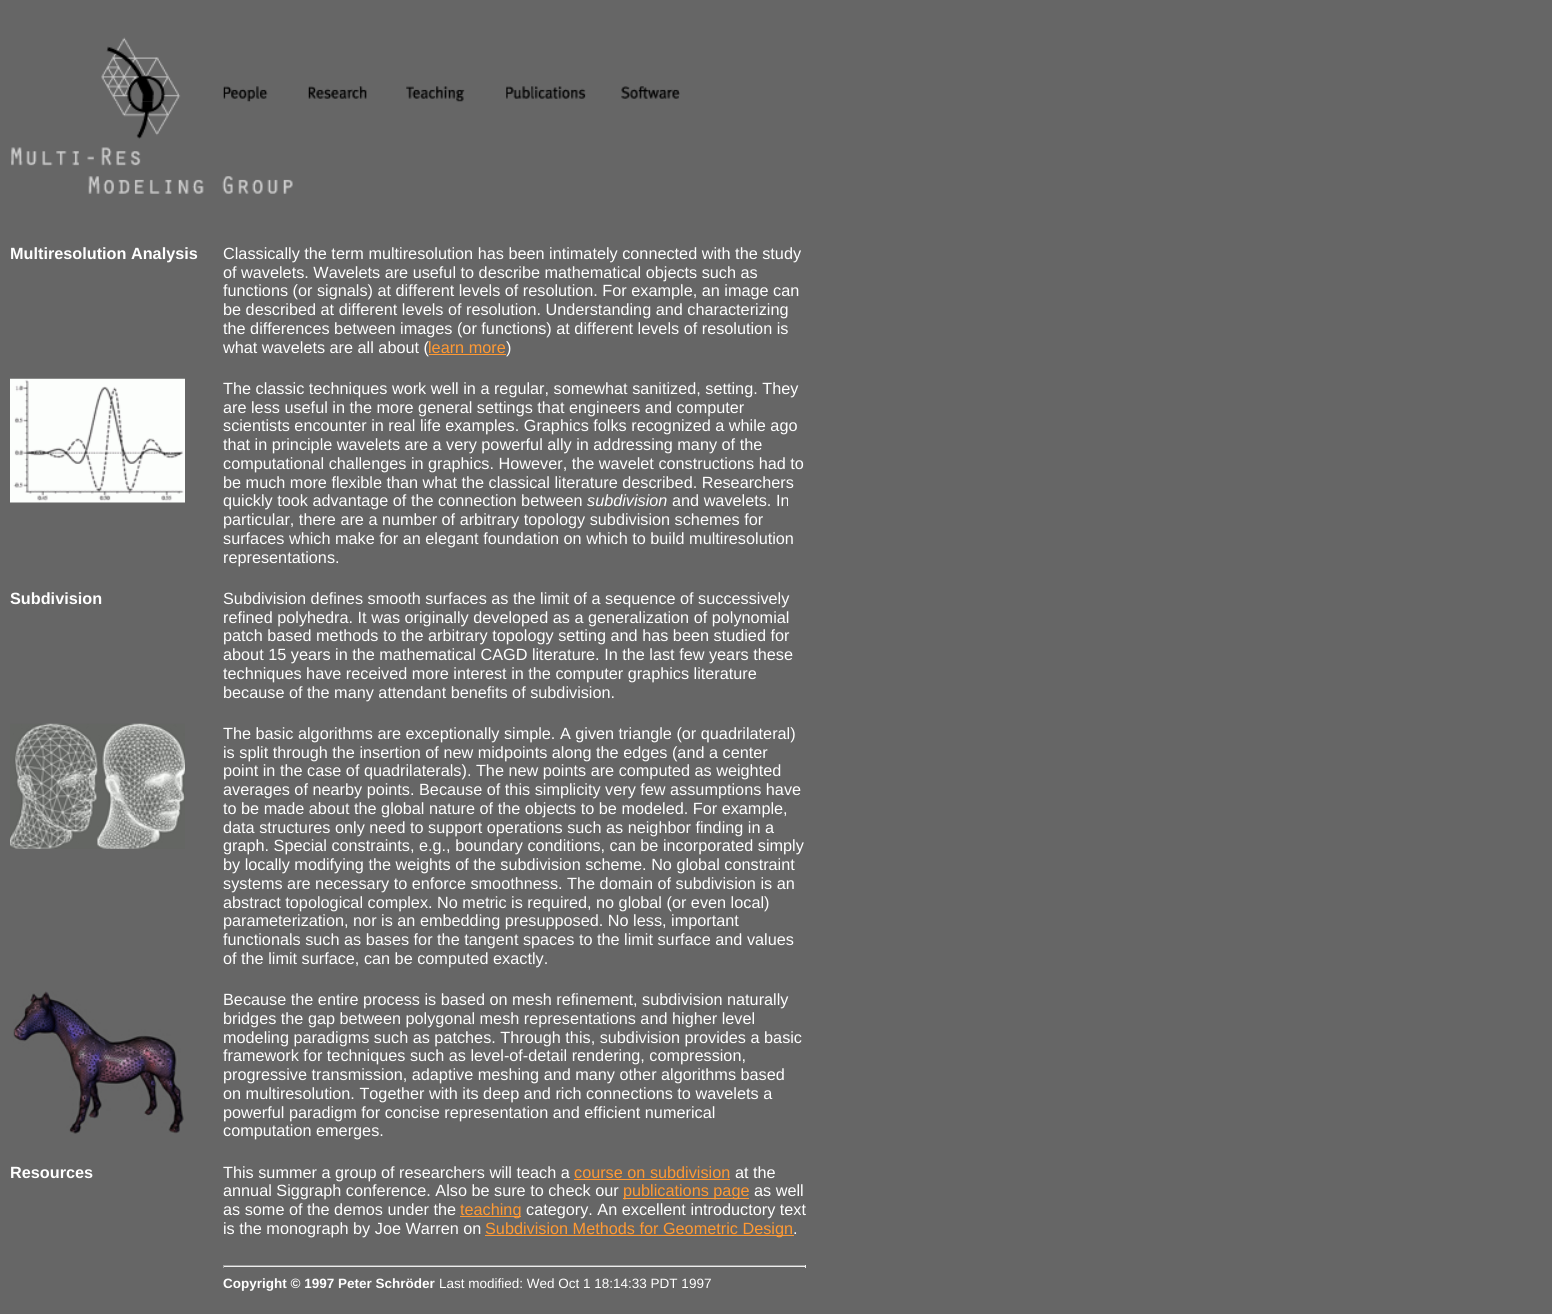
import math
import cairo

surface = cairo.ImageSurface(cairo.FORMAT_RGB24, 1552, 1314)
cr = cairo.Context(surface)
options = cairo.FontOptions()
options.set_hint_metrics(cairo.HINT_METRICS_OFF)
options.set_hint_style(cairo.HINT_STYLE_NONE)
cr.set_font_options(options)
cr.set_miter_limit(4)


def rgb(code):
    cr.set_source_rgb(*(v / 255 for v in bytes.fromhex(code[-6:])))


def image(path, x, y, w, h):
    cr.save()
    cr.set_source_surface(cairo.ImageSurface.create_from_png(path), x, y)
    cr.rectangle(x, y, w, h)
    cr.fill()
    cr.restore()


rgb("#666666")
cr.paint()
image("img/1.png", 101, 37, 80, 65)
image("img/2.png", 223, 86, 45, 16)
image("img/3.png", 308, 86, 59, 13)
image("img/4.png", 406, 86, 59, 16)
image("img/5.png", 506, 86, 80, 13)
image("img/6.png", 621, 86, 59, 13)
image("img/7.png", 11, 101, 193, 93)
image("img/8.png", 222, 176, 71, 18)
rgb("#ff9933")
cr.rectangle(429, 354, 77, 1)
cr.fill()
image("img/9.png", 10, 378, 175, 125)
image("img/10.png", 10, 723, 88, 126)
image("img/11.png", 97, 723, 88, 126)
image("img/12.png", 13, 991, 171, 143)
for x, y, w, h, color in [
    (574, 1179, 156, 1, "#ff9933"),
    (623, 1198, 126, 1, "#ff9933"),
    (460, 1216, 61, 1, "#ff9933"),
    (485, 1235, 309, 1, "#ff9933"),
    (223, 1265, 583, 1, "#9f9f9f"),
    (805, 1265, 1, 3, "#eeeeee"),
    (223, 1266, 583, 1, "#eeeeee"),
    (223, 1265, 1, 3, "#9f9f9f"),
]:
    rgb(color)
    cr.rectangle(x, y, w, h)
    cr.fill()
cr.select_font_face("Liberation Sans", cairo.FONT_SLANT_NORMAL, cairo.FONT_WEIGHT_BOLD)
cr.set_font_size(16.25)
rgb("#ffffff")
cr.move_to(10, 259)
cr.show_text("Multiresolution Analysis")
cr.select_font_face("Liberation Sans")
for x, y, s in [
    (223, 259, "Classically the term multiresolution has been intimately connected with the study"),
    (223, 278, "of wavelets. Wavelets are useful to describe mathematical objects such as"),
    (223, 296, "functions (or signals) at different levels of resolution. For example, an image can"),
    (223, 315, "be described at different levels of resolution. Understanding and characterizing"),
    (223, 334, "the differences between images (or functions) at different levels of resolution is"),
    (223, 353, "what wavelets are all about ("),
]:
    cr.move_to(x, y)
    cr.show_text(s)
rgb("#ff9933")
cr.move_to(428, 353)
cr.show_text("learn more")
rgb("#ffffff")
for x, y, s in [
    (506, 353, ")"),
    (223, 394, "The classic techniques work well in a regular, somewhat sanitized, setting. They"),
    (223, 413, "are less useful in the more general settings that engineers and computer"),
    (223, 431, "scientists encounter in real life examples. Graphics folks recognized a while ago"),
    (223, 450, "that in principle wavelets are a very powerful ally in addressing many of the"),
    (223, 469, "computational challenges in graphics. However, the wavelet constructions had to"),
    (223, 488, "be much more flexible than what the classical literature described. Researchers"),
    (223, 506, "quickly took advantage of the connection between"),
]:
    cr.move_to(x, y)
    cr.show_text(s)
cr.select_font_face("Liberation Sans", cairo.FONT_SLANT_ITALIC)
cr.move_to(587, 506)
cr.show_text("subdivision")
cr.select_font_face("Liberation Sans")
for x, y, s in [
    (672, 506, "and wavelets. In"),
    (223, 525, "particular, there are a number of arbitrary topology subdivision schemes for"),
    (223, 544, "surfaces which make for an elegant foundation on which to build multiresolution"),
    (223, 563, "representations."),
]:
    cr.move_to(x, y)
    cr.show_text(s)
cr.select_font_face("Liberation Sans", cairo.FONT_SLANT_NORMAL, cairo.FONT_WEIGHT_BOLD)
cr.move_to(10, 604)
cr.show_text("Subdivision")
cr.select_font_face("Liberation Sans")
for x, y, s in [
    (223, 604, "Subdivision defines smooth surfaces as the limit of a sequence of successively"),
    (223, 623, "refined polyhedra. It was originally developed as a generalization of polynomial"),
    (223, 641, "patch based methods to the arbitrary topology setting and has been studied for"),
    (223, 660, "about 15 years in the mathematical CAGD literature. In the last few years these"),
    (223, 679, "techniques have received more interest in the computer graphics literature"),
    (223, 698, "because of the many attendant benefits of subdivision."),
    (223, 739, "The basic algorithms are exceptionally simple. A given triangle (or quadrilateral)"),
    (223, 758, "is split through the insertion of new midpoints along the edges (and a center"),
    (223, 776, "point in the case of quadrilaterals). The new points are computed as weighted"),
    (223, 795, "averages of nearby points. Because of this simplicity very few assumptions have"),
    (223, 814, "to be made about the global nature of the objects to be modeled. For example,"),
    (223, 833, "data structures only need to support operations such as neighbor finding in a"),
    (223, 851, "graph. Special constraints, e.g., boundary conditions, can be incorporated simply"),
    (223, 870, "by locally modifying the weights of the subdivision scheme. No global constraint"),
    (223, 889, "systems are necessary to enforce smoothness. The domain of subdivision is an"),
    (223, 908, "abstract topological complex. No metric is required, no global (or even local)"),
    (223, 926, "parameterization, nor is an embedding presupposed. No less, important"),
    (223, 945, "functionals such as bases for the tangent spaces to the limit surface and values"),
    (223, 964, "of the limit surface, can be computed exactly."),
    (223, 1005, "Because the entire process is based on mesh refinement, subdivision naturally"),
    (223, 1024, "bridges the gap between polygonal mesh representations and higher level"),
    (223, 1043, "modeling paradigms such as patches. Through this, subdivision provides a basic"),
    (223, 1061, "framework for techniques such as level-of-detail rendering, compression,"),
    (223, 1080, "progressive transmission, adaptive meshing and many other algorithms based"),
    (223, 1099, "on multiresolution. Together with its deep and rich connections to wavelets a"),
    (223, 1118, "powerful paradigm for concise representation and efficient numerical"),
    (223, 1136, "computation emerges."),
]:
    cr.move_to(x, y)
    cr.show_text(s)
cr.select_font_face("Liberation Sans", cairo.FONT_SLANT_NORMAL, cairo.FONT_WEIGHT_BOLD)
cr.move_to(10, 1178)
cr.show_text("Resources")
cr.select_font_face("Liberation Sans")
cr.move_to(223, 1178)
cr.show_text("This summer a group of researchers will teach a")
rgb("#ff9933")
cr.move_to(574, 1178)
cr.show_text("course on subdivision")
rgb("#ffffff")
cr.move_to(735, 1178)
cr.show_text("at the")
cr.move_to(223, 1196)
cr.show_text("annual Siggraph conference. Also be sure to check our")
rgb("#ff9933")
cr.move_to(623, 1196)
cr.show_text("publications page")
rgb("#ffffff")
cr.move_to(754, 1196)
cr.show_text("as well")
cr.move_to(223, 1215)
cr.show_text("as some of the demos under the")
rgb("#ff9933")
cr.move_to(460, 1215)
cr.show_text("teaching")
rgb("#ffffff")
cr.move_to(526, 1215)
cr.show_text("category. An excellent introductory text")
cr.move_to(223, 1234)
cr.show_text("is the monograph by Joe Warren on")
rgb("#ff9933")
cr.move_to(485, 1234)
cr.show_text("Subdivision Methods for Geometric Design")
rgb("#ffffff")
cr.move_to(793, 1234)
cr.show_text(".")
cr.select_font_face("Liberation Sans", cairo.FONT_SLANT_NORMAL, cairo.FONT_WEIGHT_BOLD)
cr.set_font_size(13.5)
cr.move_to(223, 1288)
cr.show_text("Copyright © 1997 Peter Schröder")
cr.select_font_face("Liberation Sans")
cr.move_to(439, 1288)
cr.show_text("Last modified: Wed Oct 1 18:14:33 PDT 1997")
surface.write_to_png("page.png")
